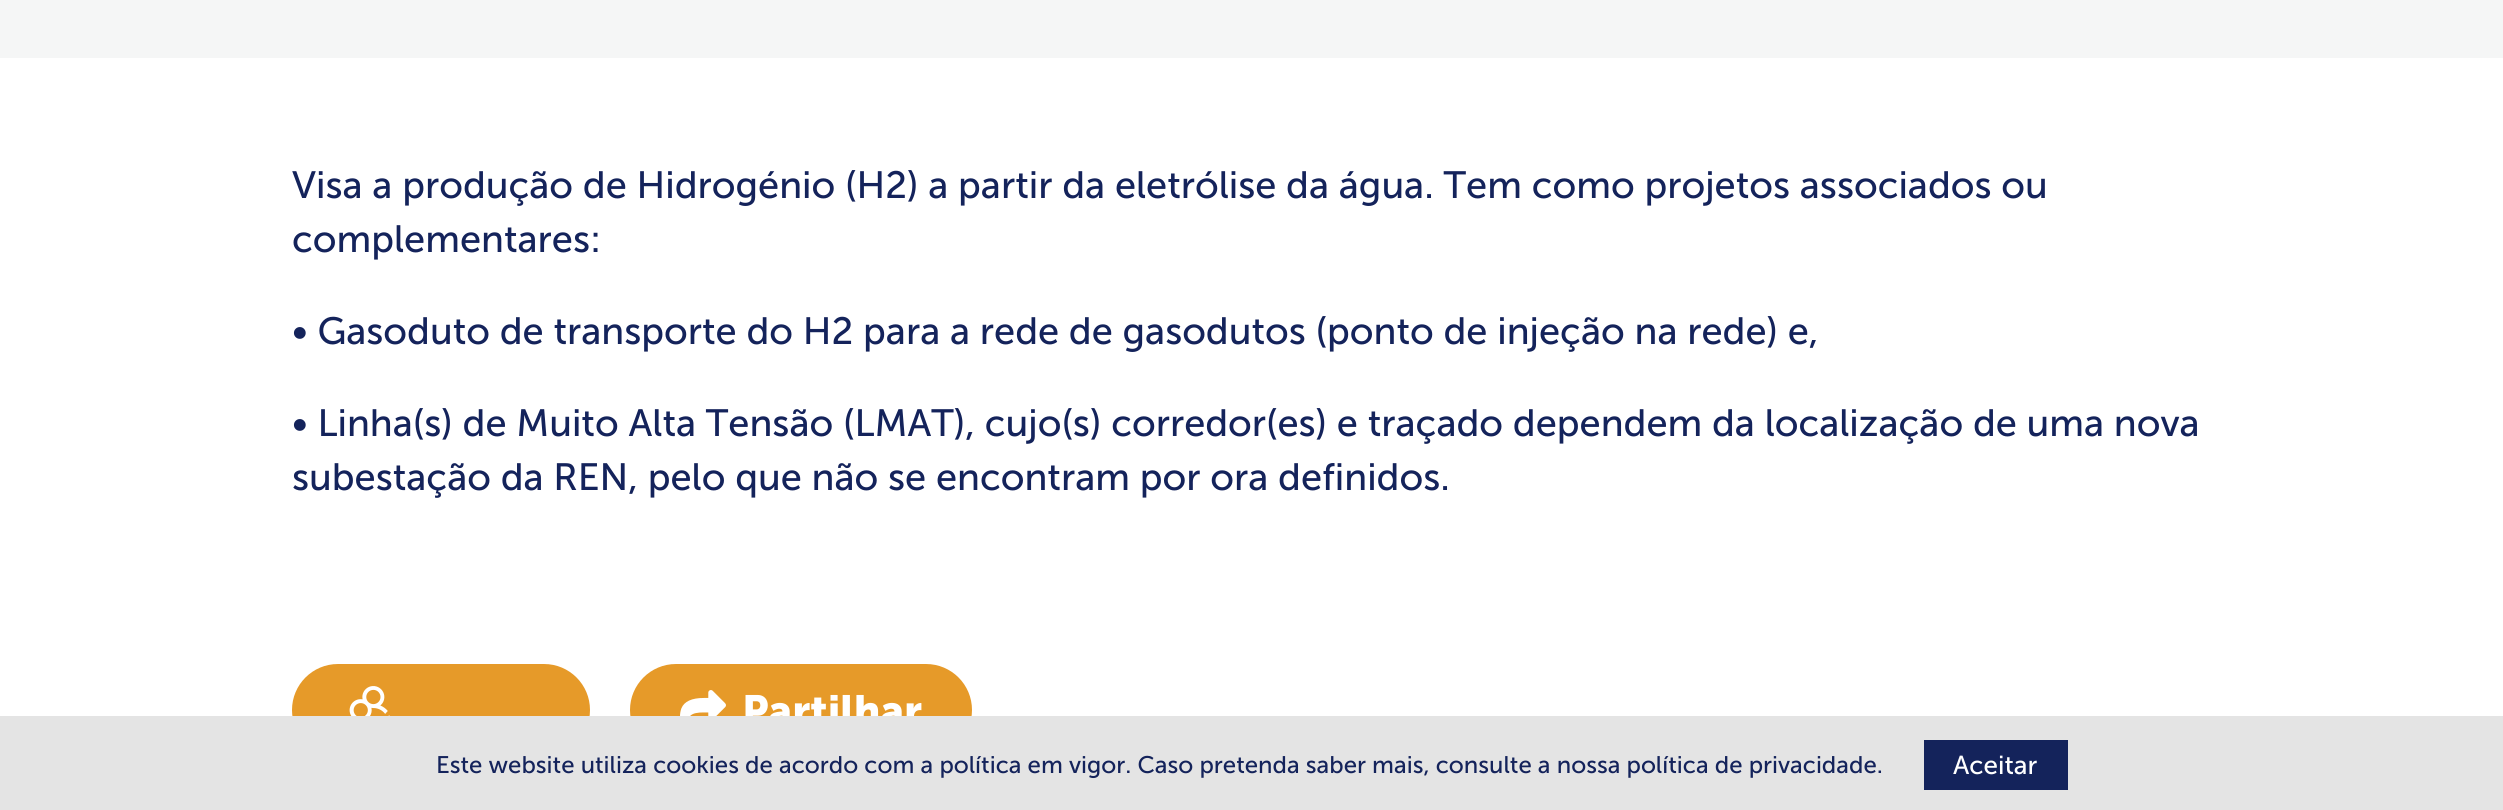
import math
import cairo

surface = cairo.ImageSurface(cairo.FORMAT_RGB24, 2503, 810)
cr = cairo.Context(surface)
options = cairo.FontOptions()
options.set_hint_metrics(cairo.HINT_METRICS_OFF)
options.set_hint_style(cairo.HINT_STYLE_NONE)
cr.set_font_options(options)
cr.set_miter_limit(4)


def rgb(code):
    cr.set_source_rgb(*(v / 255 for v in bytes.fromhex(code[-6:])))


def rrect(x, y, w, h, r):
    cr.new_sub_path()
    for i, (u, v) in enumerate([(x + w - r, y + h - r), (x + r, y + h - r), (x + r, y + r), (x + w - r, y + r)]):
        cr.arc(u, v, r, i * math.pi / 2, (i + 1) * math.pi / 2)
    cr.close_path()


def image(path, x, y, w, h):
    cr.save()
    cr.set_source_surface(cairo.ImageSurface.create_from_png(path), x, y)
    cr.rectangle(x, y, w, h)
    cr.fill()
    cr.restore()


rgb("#ffffff")
cr.paint()
rgb("#f5f6f6")
cr.rectangle(0, 0, 2503, 58)
cr.fill()
rgb("#e69a29")
rrect(292, 664, 298, 92, 46)
cr.fill()
image("img/1.png", 349, 686, 41, 30)
rrect(630, 664, 342, 92, 46)
cr.fill()
image("img/2.png", 680, 690, 46, 26)
cr.select_font_face("Museo Sans")
cr.set_font_size(38)
rgb("#14235b")
for x, y, s in [
    (292, 198, "Visa a produção de Hidrogénio (H2) a partir da eletrólise da água. Tem como projetos associados ou"),
    (292, 252, "complementares:"),
    (292, 344, "• Gasoduto de transporte do H2 para a rede de gasodutos (ponto de injeção na rede) e,"),
    (292, 436, "• Linha(s) de Muito Alta Tensão (LMAT), cujo(s) corredor(es) e traçado dependem da localização de uma nova"),
    (292, 490, "subestação da REN, pelo que não se encontram por ora definidos."),
]:
    cr.move_to(x, y)
    cr.show_text(s)
cr.select_font_face("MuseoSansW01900 ExtraBold")
cr.set_font_size(42)
rgb("#ffffff")
cr.move_to(742, 725)
cr.show_text("Partilhar")
rgb("#e4e4e4")
cr.rectangle(0, 716, 2503, 94)
cr.fill()
cr.select_font_face("Museo Sans")
cr.set_font_size(24)
rgb("#14235b")
cr.move_to(436, 773)
cr.show_text("Este website utiliza cookies de acordo com a política em vigor. Caso pretenda saber mais, consulte a nossa política de privacidade.")
cr.rectangle(1924, 740, 144, 50)
cr.fill()
cr.set_font_size(26)
rgb("#ffffff")
cr.move_to(1953, 774)
cr.show_text("Aceitar")
surface.write_to_png("page.png")
